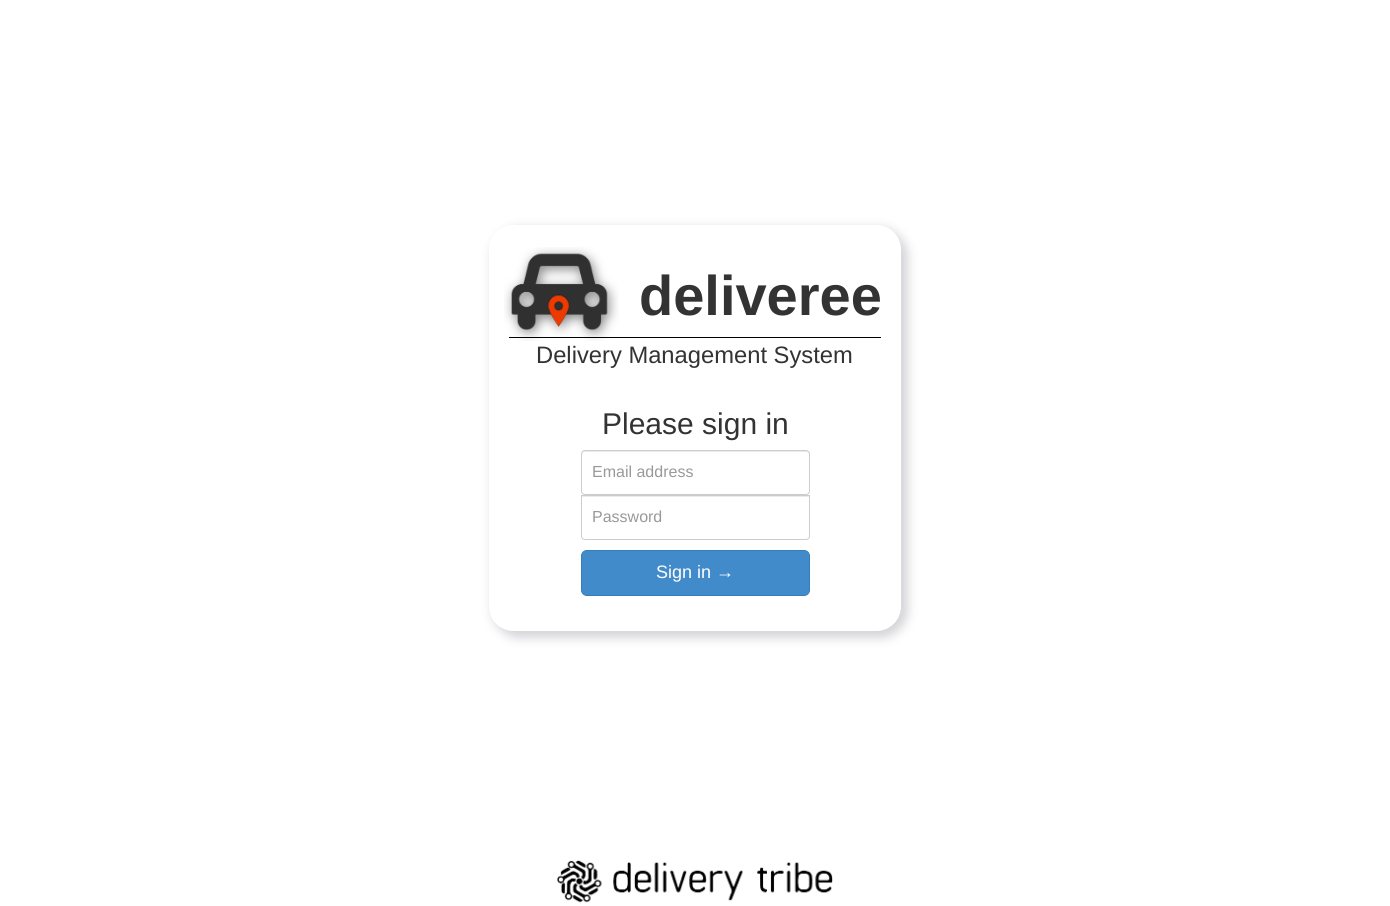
import math
import cairo

surface = cairo.ImageSurface(cairo.FORMAT_RGB24, 1390, 906)
cr = cairo.Context(surface)
options = cairo.FontOptions()
options.set_hint_metrics(cairo.HINT_METRICS_OFF)
options.set_hint_style(cairo.HINT_STYLE_NONE)
cr.set_font_options(options)
cr.set_miter_limit(4)


def rgb(code):
    cr.set_source_rgb(*(v / 255 for v in bytes.fromhex(code[-6:])))


def rrect(x, y, w, h, r):
    cr.new_sub_path()
    for i, (u, v) in enumerate([(x + w - r, y + h - r), (x + r, y + h - r), (x + r, y + r), (x + w - r, y + r)]):
        cr.arc(u, v, r, i * math.pi / 2, (i + 1) * math.pi / 2)
    cr.close_path()


def soft_shadow(x, y, w, h, r, blur, alpha):
    cr.push_group_with_content(cairo.CONTENT_ALPHA)
    cr.set_operator(cairo.OPERATOR_SOURCE)
    for i in range(15, -16, -2):
        e = blur * i / 6
        if min(w, h) + 2 * e > 0:
            cr.set_source_rgba(0, 0, 0, alpha * math.erfc((i - 1) / 8.5) / 2)
            rrect(x - e, y - e, w + 2 * e, h + 2 * e, max(0, min(r + e + blur * .6, min(w, h) / 2 + e)))
            cr.fill()
    cr.mask(cr.pop_group())


def image(path, x, y, w, h):
    cr.save()
    cr.set_source_surface(cairo.ImageSurface.create_from_png(path), x, y)
    cr.rectangle(x, y, w, h)
    cr.fill()
    cr.restore()


rgb("#ffffff")
cr.paint()
cr.save()
cr.set_fill_rule(cairo.FILL_RULE_EVEN_ODD)
cr.new_path()
cr.move_to(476, 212)
cr.line_to(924, 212)
cr.line_to(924, 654)
cr.line_to(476, 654)
cr.close_path()
cr.move_to(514, 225)
cr.line_to(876, 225)
cr.curve_to(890, 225, 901, 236, 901, 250)
cr.line_to(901, 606)
cr.curve_to(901, 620, 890, 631, 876, 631)
cr.line_to(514, 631)
cr.curve_to(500, 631, 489, 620, 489, 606)
cr.line_to(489, 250)
cr.curve_to(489, 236, 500, 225, 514, 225)
cr.close_path()
cr.clip()
rgb("#d5d4d8")
soft_shadow(492, 228, 416, 410, 27, 5, 1)
cr.restore()
rgb("#000000")
cr.rectangle(509, 337, 372, 1)
cr.fill()
image("img/1.png", 504, 247, 115, 94)
rgb("#ececec")
cr.new_path()
cr.move_to(585, 452)
cr.line_to(806, 452)
cr.curve_to(808, 452, 809, 453, 809, 455)
cr.line_to(809, 454)
cr.curve_to(809, 452, 808, 451, 806, 451)
cr.line_to(585, 451)
cr.curve_to(583, 451, 582, 452, 582, 454)
cr.line_to(582, 455)
cr.curve_to(582, 453, 583, 452, 585, 452)
cr.close_path()
cr.fill()
rrect(581.5, 450.5, 228, 44, 3.5)
rgb("#cccccc")
cr.set_line_width(1)
cr.stroke()
rgb("#ececec")
cr.rectangle(582, 496, 227, 1)
cr.fill()
cr.new_path()
cr.move_to(581.5, 495.5)
cr.line_to(809.5, 495.5)
cr.line_to(809.5, 536)
cr.curve_to(809.5, 538, 808, 539.5, 806, 539.5)
cr.line_to(585, 539.5)
cr.curve_to(583, 539.5, 581.5, 538, 581.5, 536)
cr.close_path()
rgb("#cccccc")
cr.stroke()
rgb("#428bca")
rrect(581.5, 550.5, 228, 45, 5.5)
cr.fill_preserve()
rgb("#357ebd")
cr.stroke()
image("img/2.png", 557, 860, 276, 43)
cr.select_font_face("Liberation Sans", cairo.FONT_SLANT_NORMAL, cairo.FONT_WEIGHT_BOLD)
cr.set_font_size(56)
rgb("#333333")
cr.move_to(639, 315)
cr.show_text("deliveree")
cr.select_font_face("Liberation Sans")
cr.set_font_size(23.75)
cr.move_to(536, 363)
cr.show_text("Delivery Management System")
cr.set_font_size(30)
cr.move_to(602, 434)
cr.show_text("Please sign in")
cr.set_font_size(16)
rgb("#999999")
cr.move_to(592, 477)
cr.show_text("Email address")
cr.move_to(592, 522)
cr.show_text("Password")
cr.set_font_size(18)
rgb("#ffffff")
cr.move_to(656, 578)
cr.show_text("Sign in →")
surface.write_to_png("page.png")
